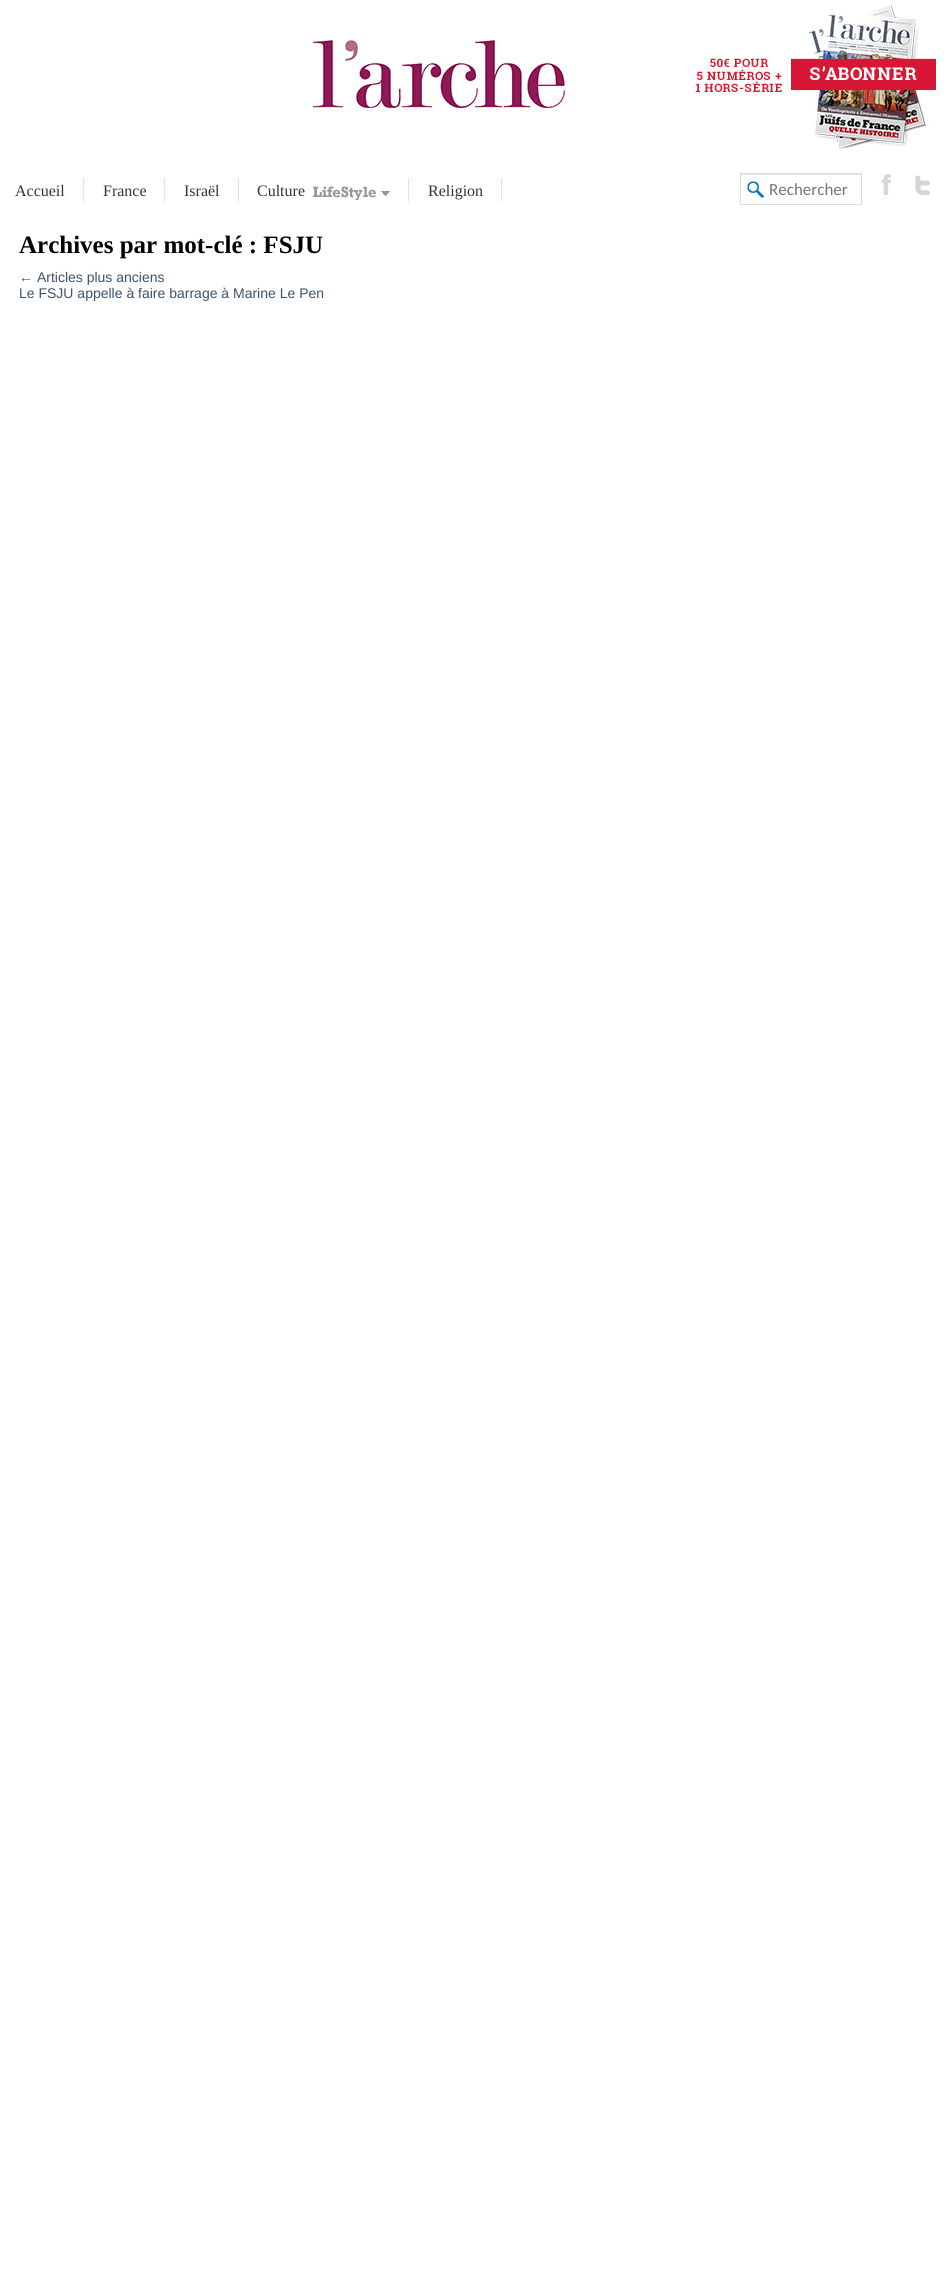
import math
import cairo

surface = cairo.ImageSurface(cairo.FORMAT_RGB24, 947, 2294)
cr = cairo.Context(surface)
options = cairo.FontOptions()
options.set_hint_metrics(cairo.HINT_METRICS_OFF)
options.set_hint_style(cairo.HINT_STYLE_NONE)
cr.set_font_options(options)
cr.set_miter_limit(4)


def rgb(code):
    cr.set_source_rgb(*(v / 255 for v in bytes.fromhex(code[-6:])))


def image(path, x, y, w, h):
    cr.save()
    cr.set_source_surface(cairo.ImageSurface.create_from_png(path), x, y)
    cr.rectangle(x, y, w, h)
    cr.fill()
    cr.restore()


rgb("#ffffff")
cr.paint()
image("img/1.png", 313, 40, 256, 68)
image("img/2.png", 692, 5, 246, 145)
cr.new_path()
cr.move_to(83.5, 179)
cr.line_to(83.5, 202)
rgb("#cccccc")
cr.set_line_width(1)
cr.set_dash([1, 1])
cr.stroke()
cr.new_path()
cr.move_to(164.5, 179)
cr.line_to(164.5, 202)
cr.stroke()
cr.new_path()
cr.move_to(238.5, 179)
cr.line_to(238.5, 202)
cr.stroke()
cr.new_path()
cr.move_to(408.5, 179)
cr.line_to(408.5, 202)
cr.stroke()
image("img/3.png", 313, 186, 77, 14)
cr.new_path()
cr.move_to(501.5, 179)
cr.line_to(501.5, 202)
cr.stroke()
image("img/4.png", 747, 181, 18, 18)
rgb("#e6e6e6")
cr.rectangle(741, 174, 120, 1)
cr.fill()
cr.rectangle(740.5, 173.5, 121, 31)
rgb("#dddddd")
cr.set_dash([])
cr.stroke()
image("img/5.png", 881, 174, 10, 21)
image("img/6.png", 915, 175, 15, 20)
cr.select_font_face("Liberation Serif")
cr.set_font_size(16)
rgb("#333333")
for x, y, s in [
    (15, 196, "Accueil"),
    (103, 196, "France"),
    (184, 196, "Israël"),
    (257, 196, "Culture"),
    (428, 196, "Religion"),
]:
    cr.move_to(x, y)
    cr.show_text(s)
cr.select_font_face("Carlito")
cr.set_font_size(17)
rgb("#757575")
cr.move_to(769, 195)
cr.show_text("Rechercher")
cr.select_font_face("Liberation Serif", cairo.FONT_SLANT_NORMAL, cairo.FONT_WEIGHT_BOLD)
cr.set_font_size(25)
rgb("#000000")
cr.move_to(19, 253)
cr.show_text("Archives par mot-clé : FSJU")
cr.select_font_face("Liberation Sans")
cr.set_font_size(14)
rgb("#39536c")
cr.move_to(19, 282)
cr.show_text("← Articles plus anciens")
cr.move_to(19, 298)
cr.show_text("Le FSJU appelle à faire barrage à Marine Le Pen")
surface.write_to_png("page.png")
